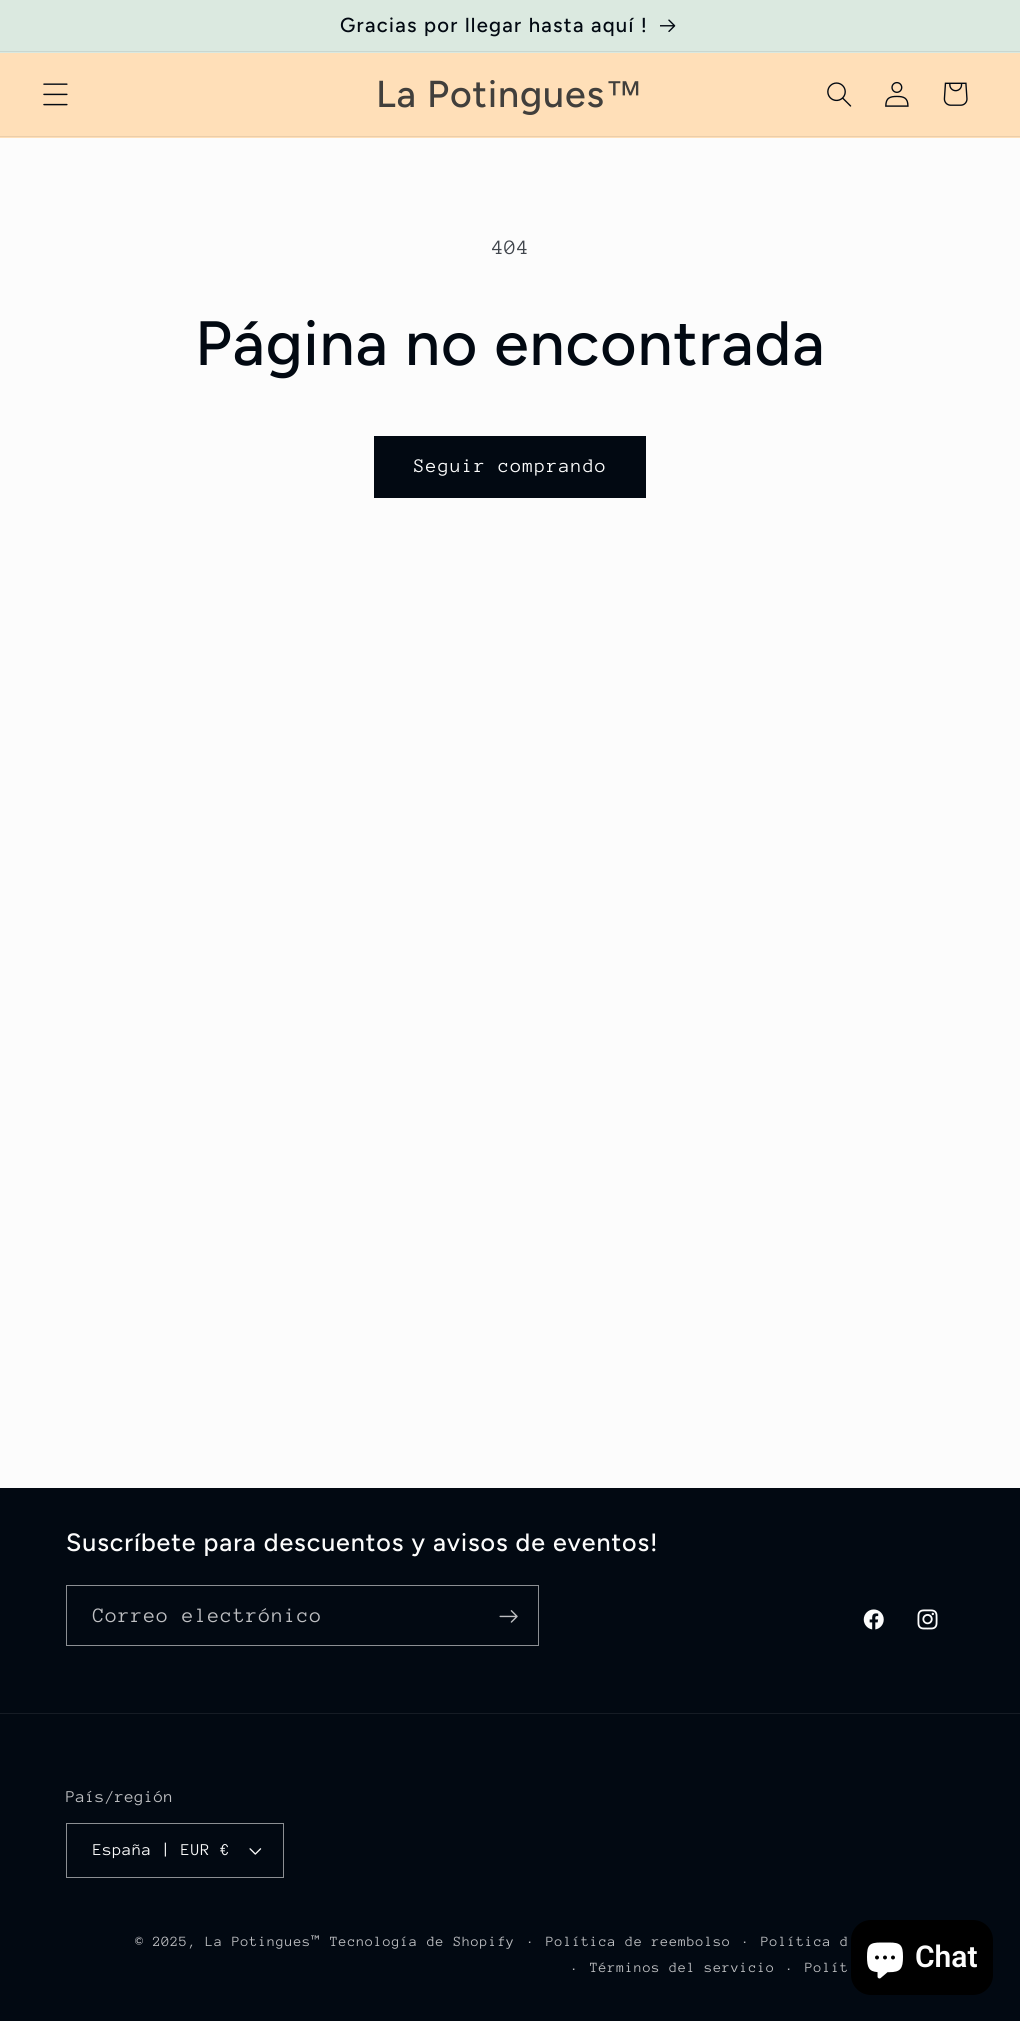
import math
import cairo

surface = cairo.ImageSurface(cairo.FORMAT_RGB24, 1020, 2021)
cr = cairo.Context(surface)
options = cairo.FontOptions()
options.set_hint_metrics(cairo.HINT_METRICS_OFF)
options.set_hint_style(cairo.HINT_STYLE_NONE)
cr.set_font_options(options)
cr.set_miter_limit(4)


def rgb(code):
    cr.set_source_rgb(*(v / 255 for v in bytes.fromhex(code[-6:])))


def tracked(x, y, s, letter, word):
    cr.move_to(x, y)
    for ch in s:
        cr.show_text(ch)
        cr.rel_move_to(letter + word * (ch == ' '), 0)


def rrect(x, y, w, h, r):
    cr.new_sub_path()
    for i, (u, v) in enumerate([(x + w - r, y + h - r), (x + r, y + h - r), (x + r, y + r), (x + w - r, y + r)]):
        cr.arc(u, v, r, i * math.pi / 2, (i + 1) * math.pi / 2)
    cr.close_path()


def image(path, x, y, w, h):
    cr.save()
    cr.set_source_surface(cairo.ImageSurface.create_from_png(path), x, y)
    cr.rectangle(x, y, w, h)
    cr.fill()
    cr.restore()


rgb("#fcfcfc")
cr.paint()
rgb("#dbe9e0")
cr.rectangle(0, 0, 1020, 53)
cr.fill()
rgb("#cad7d0")
cr.rectangle(0, 51, 1020, 1)
cr.fill()
image("img/1.png", 660, 19, 16, 13)
rgb("#ffdfb8")
cr.rectangle(0, 53, 1020, 85)
cr.fill()
rgb("#ebceab")
cr.rectangle(0, 136, 1020, 1)
cr.fill()
image("img/2.png", 43, 83, 25, 23)
image("img/3.png", 827, 82, 25, 25)
image("img/4.png", 885, 81, 24, 26)
image("img/5.png", 943, 82, 25, 24)
rgb("#020912")
cr.rectangle(374, 436, 272, 62)
cr.fill()
cr.rectangle(0, 1488, 1020, 533)
cr.fill()
cr.rectangle(66.5, 1585.5, 472, 60)
rgb("#8c8f93")
cr.set_line_width(1)
cr.stroke()
image("img/6.png", 499, 1610, 19, 13)
image("img/7.png", 863, 1609, 21, 21)
image("img/8.png", 917, 1609, 21, 21)
rgb("#161c25")
cr.rectangle(0, 1713, 1020, 1)
cr.fill()
image("img/9.png", 249, 1848, 13, 7)
cr.rectangle(66.5, 1823.5, 217, 54)
rgb("#8c8f93")
cr.stroke()
rgb("#000000")
rrect(851, 1920, 142, 75, 20)
cr.fill()
image("img/10.png", 867, 1942, 36, 37)
cr.select_font_face("Figtree Medium")
cr.set_font_size(20.25)
rgb("#020912")
tracked(340, 32, "Gracias por llegar hasta aquí !", 1.3, 0)
cr.set_font_size(37.5)
rgb("#413f3c")
tracked(376, 107, "La Potingues", 0.95, 0)
cr.select_font_face("Liberation Sans")
tracked(605, 107, "™", 0.95, 0)
cr.select_font_face("Anonymous Pro")
cr.set_font_size(21)
rgb("#41464d")
tracked(492, 254, "404", 1, 0)
cr.select_font_face("Figtree Medium")
cr.set_font_size(62.5)
rgb("#020912")
tracked(195, 365, "Página no encontrada", 0.95, 0)
cr.select_font_face("Anonymous Pro")
cr.set_font_size(19.75)
rgb("#fcfcfc")
tracked(414, 472, "Seguir comprando", 1.3, 0)
cr.select_font_face("Figtree Medium")
cr.set_font_size(25)
tracked(66, 1551, "Suscríbete para descuentos y avisos de eventos!", 0.95, 0)
cr.select_font_face("Anonymous Pro")
cr.set_font_size(21)
rgb("#bebfc2")
tracked(93, 1622, "Correo electrónico", 1.3, 0)
cr.set_font_size(17)
tracked(66, 1802, "País/región", 0.5, 0)
rgb("#fcfcfc")
tracked(93, 1855, "España | EUR €", 0.5, 0)
cr.set_font_size(14.5)
rgb("#bebfc2")
tracked(135, 1946, "© 2025, La Potingues", 0.9, 0)
cr.select_font_face("DejaVu Sans Mono")
tracked(311, 1946, "™", 0.9, 0)
cr.select_font_face("Anonymous Pro")
tracked(330, 1946, "Tecnología de Shopify", 0.9, 0)
cr.set_font_size(16)
tracked(526, 1946, "·", 0.9, 0)
cr.set_font_size(14.5)
tracked(546, 1946, "Política de reembolso", 0.9, 0)
cr.set_font_size(16)
tracked(741, 1946, "·", 0.9, 0)
cr.set_font_size(14.5)
tracked(761, 1946, "Política d", 0.9, 0)
cr.set_font_size(16)
tracked(570, 1973, "·", 0.9, 0)
cr.set_font_size(14.5)
tracked(590, 1972, "Términos del servicio", 0.9, 0)
cr.set_font_size(16)
tracked(785, 1973, "·", 0.9, 0)
cr.set_font_size(14.5)
tracked(805, 1972, "Polít", 0.9, 0)
cr.select_font_face("Roboto SemiBold")
cr.set_font_size(30)
rgb("#fcfcfc")
cr.move_to(915, 1967)
cr.show_text("Chat")
surface.write_to_png("page.png")
